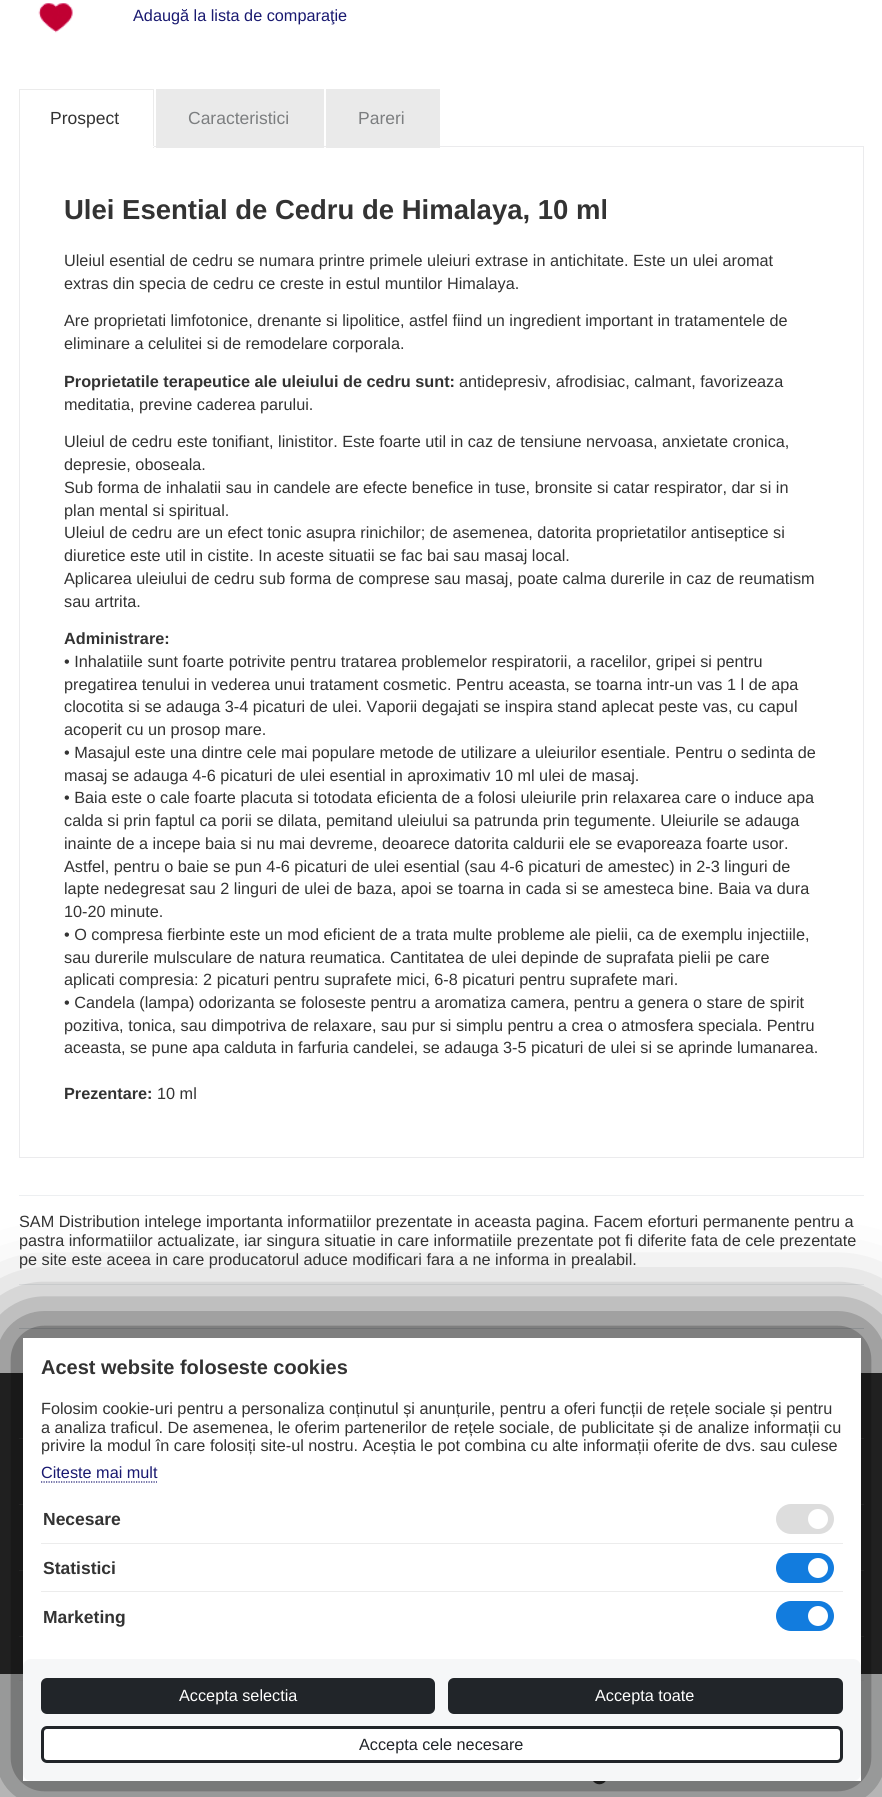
import math
import cairo

surface = cairo.ImageSurface(cairo.FORMAT_RGB24, 882, 1797)
cr = cairo.Context(surface)
options = cairo.FontOptions()
options.set_hint_metrics(cairo.HINT_METRICS_OFF)
options.set_hint_style(cairo.HINT_STYLE_NONE)
cr.set_font_options(options)
cr.set_miter_limit(4)


def rgb(code):
    cr.set_source_rgb(*(v / 255 for v in bytes.fromhex(code[-6:])))


def rrect(x, y, w, h, r):
    cr.new_sub_path()
    for i, (u, v) in enumerate([(x + w - r, y + h - r), (x + r, y + h - r), (x + r, y + r), (x + w - r, y + r)]):
        cr.arc(u, v, r, i * math.pi / 2, (i + 1) * math.pi / 2)
    cr.close_path()


def soft_shadow(x, y, w, h, r, blur, alpha):
    cr.push_group_with_content(cairo.CONTENT_ALPHA)
    cr.set_operator(cairo.OPERATOR_SOURCE)
    for i in range(15, -16, -2):
        e = blur * i / 6
        if min(w, h) + 2 * e > 0:
            cr.set_source_rgba(0, 0, 0, alpha * math.erfc((i - 1) / 8.5) / 2)
            rrect(x - e, y - e, w + 2 * e, h + 2 * e, max(0, min(r + e + blur * .6, min(w, h) / 2 + e)))
            cr.fill()
    cr.mask(cr.pop_group())


def image(path, x, y, w, h):
    cr.save()
    cr.set_source_surface(cairo.ImageSurface.create_from_png(path), x, y)
    cr.rectangle(x, y, w, h)
    cr.fill()
    cr.restore()


rgb("#ffffff")
cr.paint()
image("img/1.png", 38, 3, 35, 30)
cr.rectangle(19.5, 146.5, 844, 1011)
rgb("#ebebed")
cr.set_line_width(1)
cr.stroke()
for x, y, w, h, color in [
    (20, 146, 133, 1, "#ffffff"),
    (19, 89, 135, 1, "#ebebeb"),
    (153, 89, 1, 59, "#ebebeb"),
    (19, 146, 135, 1, "#ffffff"),
    (19, 89, 1, 59, "#ebebeb"),
    (156, 89, 168, 59, "#eaeaea"),
    (326, 89, 114, 59, "#eaeaea"),
    (19, 1195, 845, 1, "#edeff1"),
    (19, 1284, 845, 1, "#edeff1"),
    (19, 1328, 845, 1, "#dee2e6"),
    (0, 1373, 882, 301, "#333333"),
    (19, 1438, 845, 1, "#464646"),
    (19, 1504, 845, 1, "#464646"),
    (19, 1570, 845, 1, "#464646"),
    (19, 1636, 845, 1, "#464646"),
    (0, 1674, 882, 123, "#f1f2f2"),
    (19, 1680, 845, 1, "#ebebeb"),
]:
    rgb(color)
    cr.rectangle(x, y, w, h)
    cr.fill()
image("img/2.png", 593, 1781, 13, 4)
rgb("#000000")
soft_shadow(18, 1333, 846, 451, 0, 44, 1)
rgb("#ffffff")
cr.rectangle(23, 1338, 838, 443)
cr.fill()
cr.new_path()
cr.move_to(41, 1482)
cr.line_to(157, 1482)
rgb("#191970")
cr.set_line_width(1.2)
cr.set_dash([1.25, 1.25])
cr.stroke()
rgb("#ececec")
cr.rectangle(41, 1543, 802, 1)
cr.fill()
rgb("#dddddd")
rrect(776, 1504, 58, 30, 15)
cr.fill()
rgb("#ffffff")
cr.arc(818, 1519, 10, 0, 2 * math.pi)
cr.fill()
rgb("#ececec")
cr.rectangle(41, 1591, 802, 1)
cr.fill()
rgb("#127cde")
rrect(776, 1553, 58, 30, 15)
cr.fill()
rgb("#ffffff")
cr.arc(818, 1568, 10, 0, 2 * math.pi)
cr.fill()
rgb("#127cde")
rrect(776, 1601, 58, 30, 15)
cr.fill()
rgb("#ffffff")
cr.arc(818, 1616, 10, 0, 2 * math.pi)
cr.fill()
rgb("#f6f7f8")
rrect(23, 1659, 838, 122, 8)
cr.fill()
rgb("#212529")
rrect(42.5, 1679.5, 391, 33, 4.5)
cr.fill_preserve()
cr.set_line_width(3)
cr.set_dash([])
cr.stroke()
rrect(449.5, 1679.5, 392, 33, 4.5)
cr.fill_preserve()
cr.stroke()
rgb("#ffffff")
rrect(42.5, 1727.5, 799, 34, 4.5)
cr.fill_preserve()
rgb("#212529")
cr.stroke()
cr.select_font_face("Liberation Sans")
cr.set_font_size(16.25)
rgb("#191970")
cr.move_to(133, 21)
cr.show_text("Adaugă la lista de comparaţie")
cr.set_font_size(17.5)
rgb("#333333")
cr.move_to(50, 124)
cr.show_text("Prospect")
rgb("#7c7e80")
cr.move_to(188, 124)
cr.show_text("Caracteristici")
cr.move_to(358, 124)
cr.show_text("Pareri")
cr.select_font_face("Liberation Sans", cairo.FONT_SLANT_NORMAL, cairo.FONT_WEIGHT_BOLD)
cr.set_font_size(27.5)
rgb("#333333")
cr.move_to(64, 219)
cr.show_text("Ulei Esential de Cedru de Himalaya, 10 ml")
cr.select_font_face("Liberation Sans")
cr.set_font_size(16.25)
for x, y, s in [
    (64, 266, "Uleiul esential de cedru se numara printre primele uleiuri extrase in antichitate. Este un ulei aromat"),
    (64, 289, "extras din specia de cedru ce creste in estul muntilor Himalaya."),
    (64, 326, "Are proprietati limfotonice, drenante si lipolitice, astfel fiind un ingredient important in tratamentele de"),
    (64, 349, "eliminare a celulitei si de remodelare corporala."),
]:
    cr.move_to(x, y)
    cr.show_text(s)
cr.select_font_face("Liberation Sans", cairo.FONT_SLANT_NORMAL, cairo.FONT_WEIGHT_BOLD)
cr.move_to(64, 387)
cr.show_text("Proprietatile terapeutice ale uleiului de cedru sunt:")
cr.select_font_face("Liberation Sans")
for x, y, s in [
    (459, 387, "antidepresiv, afrodisiac, calmant, favorizeaza"),
    (64, 410, "meditatia, previne caderea parului."),
    (64, 447, "Uleiul de cedru este tonifiant, linistitor. Este foarte util in caz de tensiune nervoasa, anxietate cronica,"),
    (64, 470, "depresie, oboseala."),
    (64, 493, "Sub forma de inhalatii sau in candele are efecte benefice in tuse, bronsite si catar respirator, dar si in"),
    (64, 516, "plan mental si spiritual."),
    (64, 538, "Uleiul de cedru are un efect tonic asupra rinichilor; de asemenea, datorita proprietatilor antiseptice si"),
    (64, 561, "diuretice este util in cistite. In aceste situatii se fac bai sau masaj local."),
    (64, 584, "Aplicarea uleiului de cedru sub forma de comprese sau masaj, poate calma durerile in caz de reumatism"),
    (64, 607, "sau artrita."),
]:
    cr.move_to(x, y)
    cr.show_text(s)
cr.select_font_face("Liberation Sans", cairo.FONT_SLANT_NORMAL, cairo.FONT_WEIGHT_BOLD)
cr.move_to(64, 644)
cr.show_text("Administrare:")
cr.select_font_face("Liberation Sans")
for x, y, s in [
    (64, 667, "• Inhalatiile sunt foarte potrivite pentru tratarea problemelor respiratorii, a racelilor, gripei si pentru"),
    (64, 690, "pregatirea tenului in vederea unui tratament cosmetic. Pentru aceasta, se toarna intr-un vas 1 l de apa"),
    (64, 712, "clocotita si se adauga 3-4 picaturi de ulei. Vaporii degajati se inspira stand aplecat peste vas, cu capul"),
    (64, 735, "acoperit cu un prosop mare."),
    (64, 758, "• Masajul este una dintre cele mai populare metode de utilizare a uleiurilor esentiale. Pentru o sedinta de"),
    (64, 781, "masaj se adauga 4-6 picaturi de ulei esential in aproximativ 10 ml ulei de masaj."),
    (64, 803, "• Baia este o cale foarte placuta si totodata eficienta de a folosi uleiurile prin relaxarea care o induce apa"),
    (64, 826, "calda si prin faptul ca porii se dilata, pemitand uleiului sa patrunda prin tegumente. Uleiurile se adauga"),
    (64, 849, "inainte de a incepe baia si nu mai devreme, deoarece datorita caldurii ele se evaporeaza foarte usor."),
    (64, 872, "Astfel, pentru o baie se pun 4-6 picaturi de ulei esential (sau 4-6 picaturi de amestec) in 2-3 linguri de"),
    (64, 894, "lapte nedegresat sau 2 linguri de ulei de baza, apoi se toarna in cada si se amesteca bine. Baia va dura"),
    (64, 917, "10-20 minute."),
    (64, 940, "• O compresa fierbinte este un mod eficient de a trata multe probleme ale pielii, ca de exemplu injectiile,"),
    (64, 963, "sau durerile mulsculare de natura reumatica. Cantitatea de ulei depinde de suprafata pielii pe care"),
    (64, 985, "aplicati compresia: 2 picaturi pentru suprafete mici, 6-8 picaturi pentru suprafete mari."),
    (64, 1008, "• Candela (lampa) odorizanta se foloseste pentru a aromatiza camera, pentru a genera o stare de spirit"),
    (64, 1031, "pozitiva, tonica, sau dimpotriva de relaxare, sau pur si simplu pentru a crea o atmosfera speciala. Pentru"),
    (64, 1053, "aceasta, se pune apa calduta in farfuria candelei, se adauga 3-5 picaturi de ulei si se aprinde lumanarea."),
]:
    cr.move_to(x, y)
    cr.show_text(s)
cr.select_font_face("Liberation Sans", cairo.FONT_SLANT_NORMAL, cairo.FONT_WEIGHT_BOLD)
cr.move_to(64, 1099)
cr.show_text("Prezentare:")
cr.select_font_face("Liberation Sans")
for x, y, s in [
    (157, 1099, "10 ml"),
    (19, 1227, "SAM Distribution intelege importanta informatiilor prezentate in aceasta pagina. Facem eforturi permanente pentru a"),
    (19, 1246, "pastra informatiilor actualizate, iar singura situatie in care informatiile prezentate pot fi diferite fata de cele prezentate"),
    (19, 1265, "pe site este aceea in care producatorul aduce modificari fara a ne informa in prealabil."),
]:
    cr.move_to(x, y)
    cr.show_text(s)
cr.select_font_face("Liberation Sans", cairo.FONT_SLANT_NORMAL, cairo.FONT_WEIGHT_BOLD)
cr.set_font_size(20)
cr.move_to(41, 1374)
cr.show_text("Acest website foloseste cookies")
cr.select_font_face("Liberation Sans")
cr.set_font_size(16.25)
for x, y, s in [
    (41, 1414, "Folosim cookie-uri pentru a personaliza conținutul și anunțurile, pentru a oferi funcții de rețele sociale și pentru"),
    (41, 1433, "a analiza traficul. De asemenea, le oferim partenerilor de rețele sociale, de publicitate și de analize informații cu"),
    (41, 1451, "privire la modul în care folosiți site-ul nostru. Aceștia le pot combina cu alte informații oferite de dvs. sau culese"),
]:
    cr.move_to(x, y)
    cr.show_text(s)
rgb("#191970")
cr.move_to(41, 1478)
cr.show_text("Citeste mai mult")
cr.select_font_face("Liberation Sans", cairo.FONT_SLANT_NORMAL, cairo.FONT_WEIGHT_BOLD)
cr.set_font_size(17.5)
rgb("#333333")
for x, y, s in [
    (43, 1525, "Necesare"),
    (43, 1574, "Statistici"),
    (43, 1623, "Marketing"),
]:
    cr.move_to(x, y)
    cr.show_text(s)
cr.select_font_face("Liberation Sans")
cr.set_font_size(16.25)
rgb("#ffffff")
cr.move_to(179, 1701)
cr.show_text("Accepta selectia")
cr.move_to(595, 1701)
cr.show_text("Accepta toate")
rgb("#212529")
cr.move_to(359, 1750)
cr.show_text("Accepta cele necesare")
surface.write_to_png("page.png")
